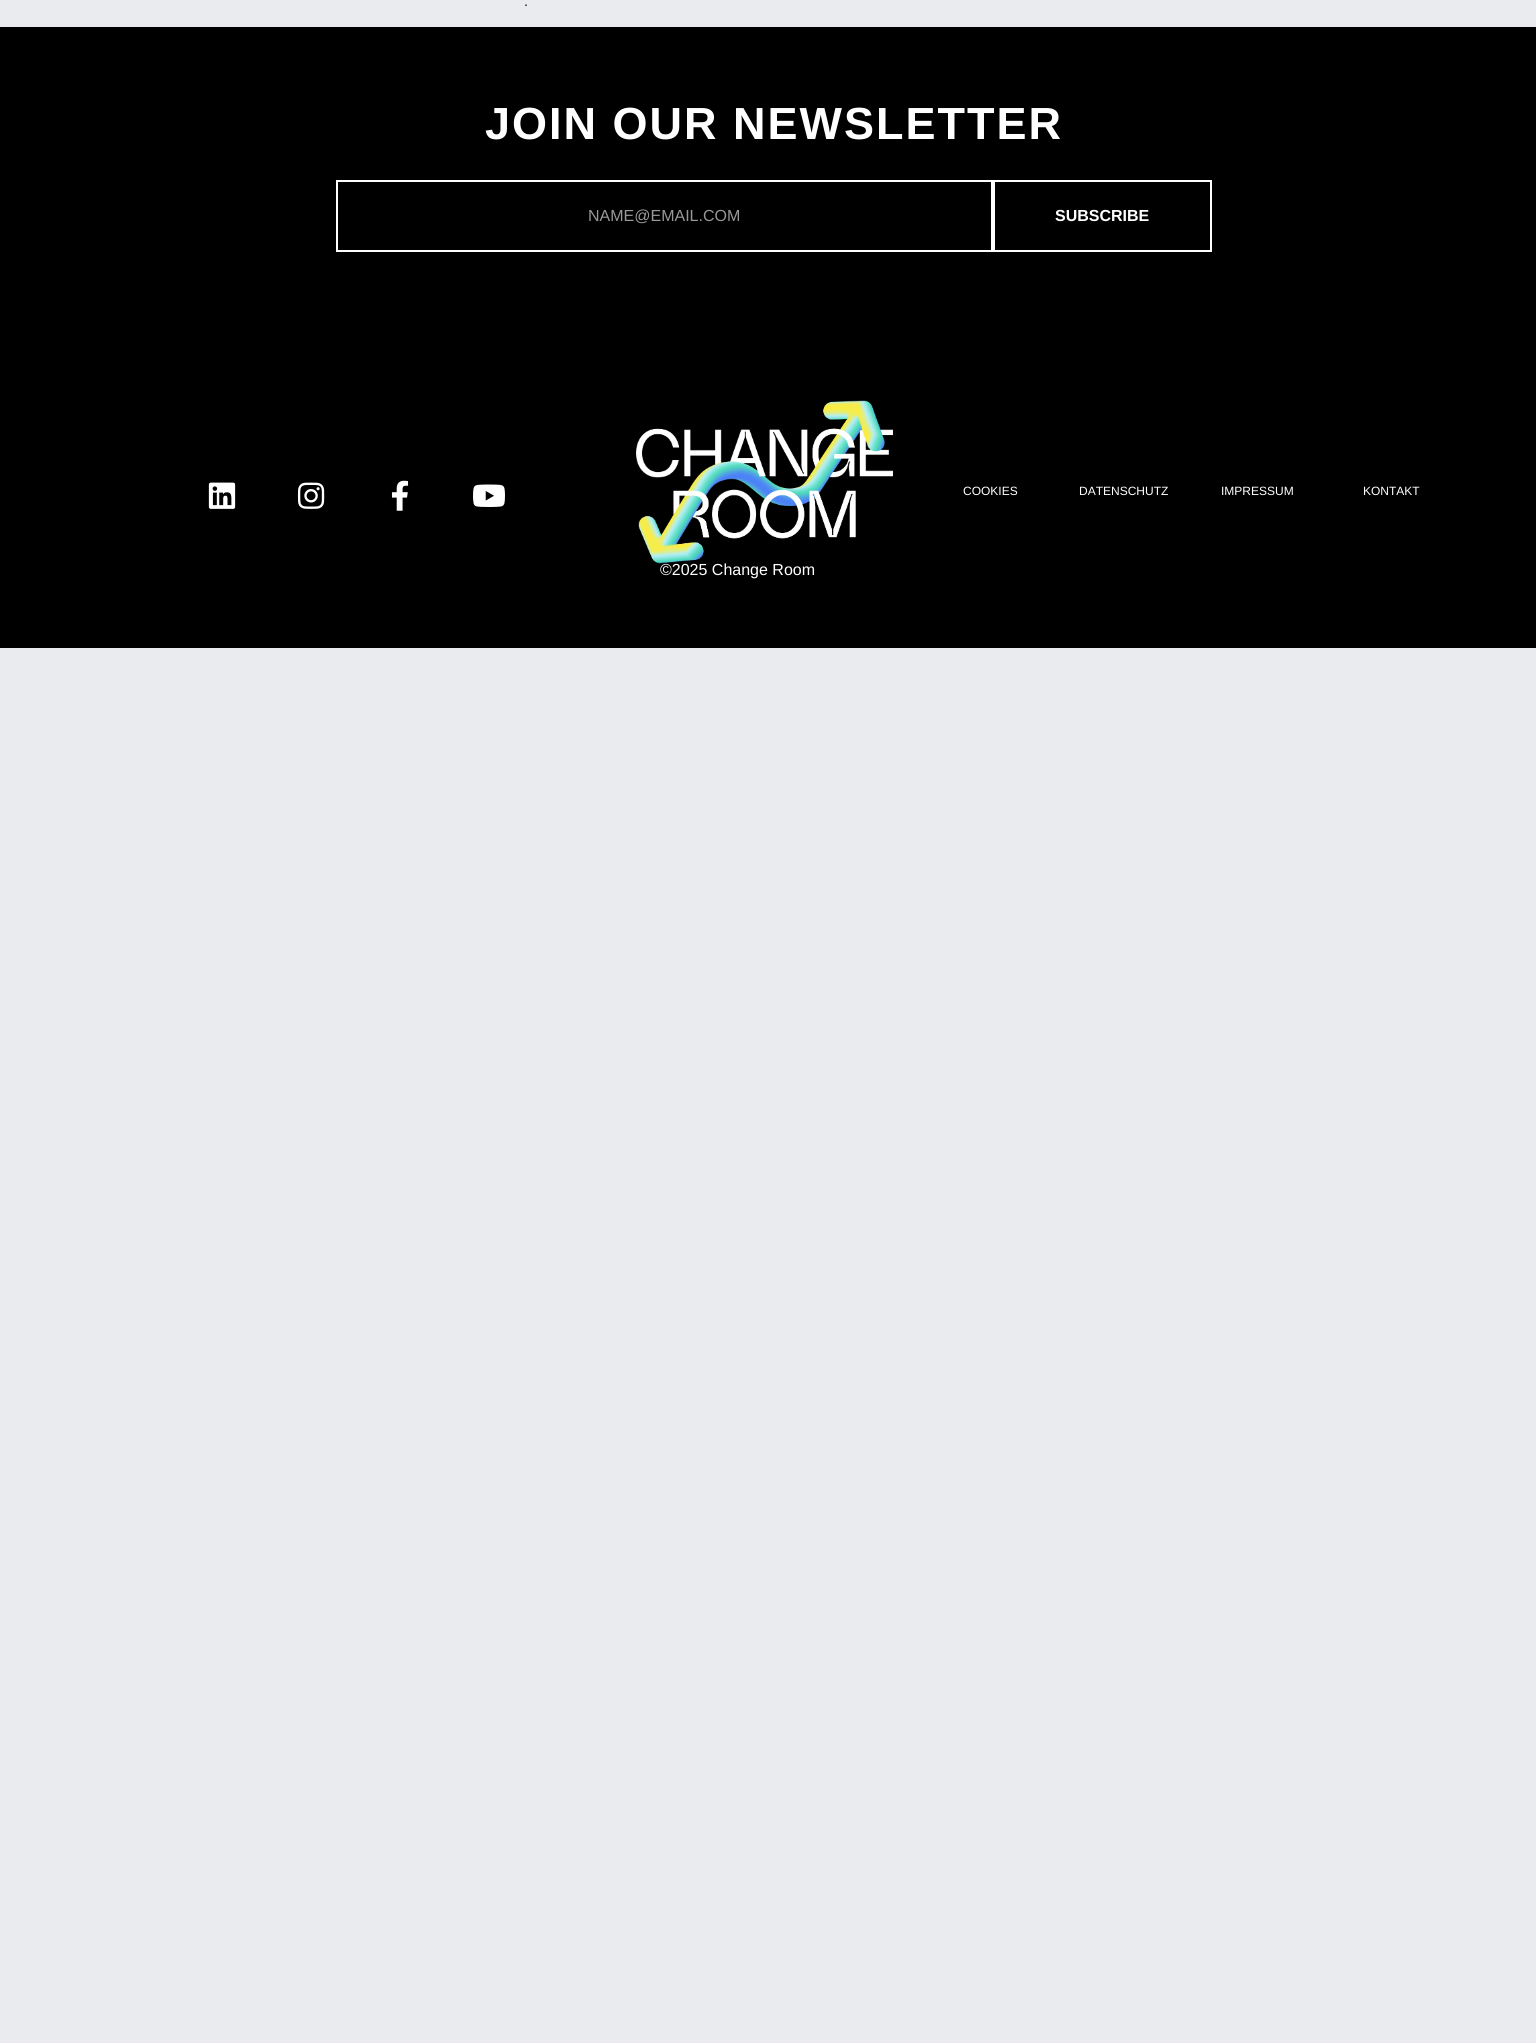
import math
import cairo

surface = cairo.ImageSurface(cairo.FORMAT_RGB24, 1536, 2043)
cr = cairo.Context(surface)
options = cairo.FontOptions()
options.set_hint_metrics(cairo.HINT_METRICS_OFF)
options.set_hint_style(cairo.HINT_STYLE_NONE)
cr.set_font_options(options)
cr.set_miter_limit(4)


def rgb(code):
    cr.set_source_rgb(*(v / 255 for v in bytes.fromhex(code[-6:])))


def tracked(x, y, s, letter, word):
    cr.move_to(x, y)
    for ch in s:
        cr.show_text(ch)
        cr.rel_move_to(letter + word * (ch == ' '), 0)


def image(path, x, y, w, h):
    cr.save()
    cr.set_source_surface(cairo.ImageSurface.create_from_png(path), x, y)
    cr.rectangle(x, y, w, h)
    cr.fill()
    cr.restore()


rgb("#e9ebef")
cr.paint()
rgb("#000000")
cr.rectangle(0, 27, 1536, 621)
cr.fill()
cr.rectangle(337, 181, 655, 70)
rgb("#ffffff")
cr.stroke()
cr.rectangle(994, 181, 217, 70)
cr.stroke()
image("img/1.png", 208, 482, 28, 27)
image("img/2.png", 297, 482, 28, 27)
image("img/3.png", 391, 480, 18, 31)
image("img/4.png", 473, 484, 32, 23)
image("img/5.png", 636, 400, 257, 164)
cr.select_font_face("Roboto")
cr.set_font_size(16)
rgb("#333333")
cr.move_to(524, 6)
cr.show_text(".")
cr.select_font_face("Liberation Sans", cairo.FONT_SLANT_NORMAL, cairo.FONT_WEIGHT_BOLD)
cr.set_font_size(45)
rgb("#ffffff")
tracked(485, 139, "JOIN OUR NEWSLETTER", 2, 0)
cr.select_font_face("Liberation Sans")
cr.set_font_size(16)
rgb("#999999")
cr.move_to(588, 221)
cr.show_text("NAME@EMAIL.COM")
cr.select_font_face("Liberation Sans", cairo.FONT_SLANT_NORMAL, cairo.FONT_WEIGHT_BOLD)
rgb("#ffffff")
cr.move_to(1055, 221)
cr.show_text("SUBSCRIBE")
cr.select_font_face("Liberation Sans")
cr.set_font_size(12)
for x, y, s in [
    (963, 495, "COOKIES"),
    (1079, 495, "DATENSCHUTZ"),
    (1221, 495, "IMPRESSUM"),
    (1363, 495, "KONTAKT"),
]:
    cr.move_to(x, y)
    cr.show_text(s)
cr.set_font_size(16)
cr.move_to(660, 575)
cr.show_text("©2025 Change Room")
surface.write_to_png("page.png")
